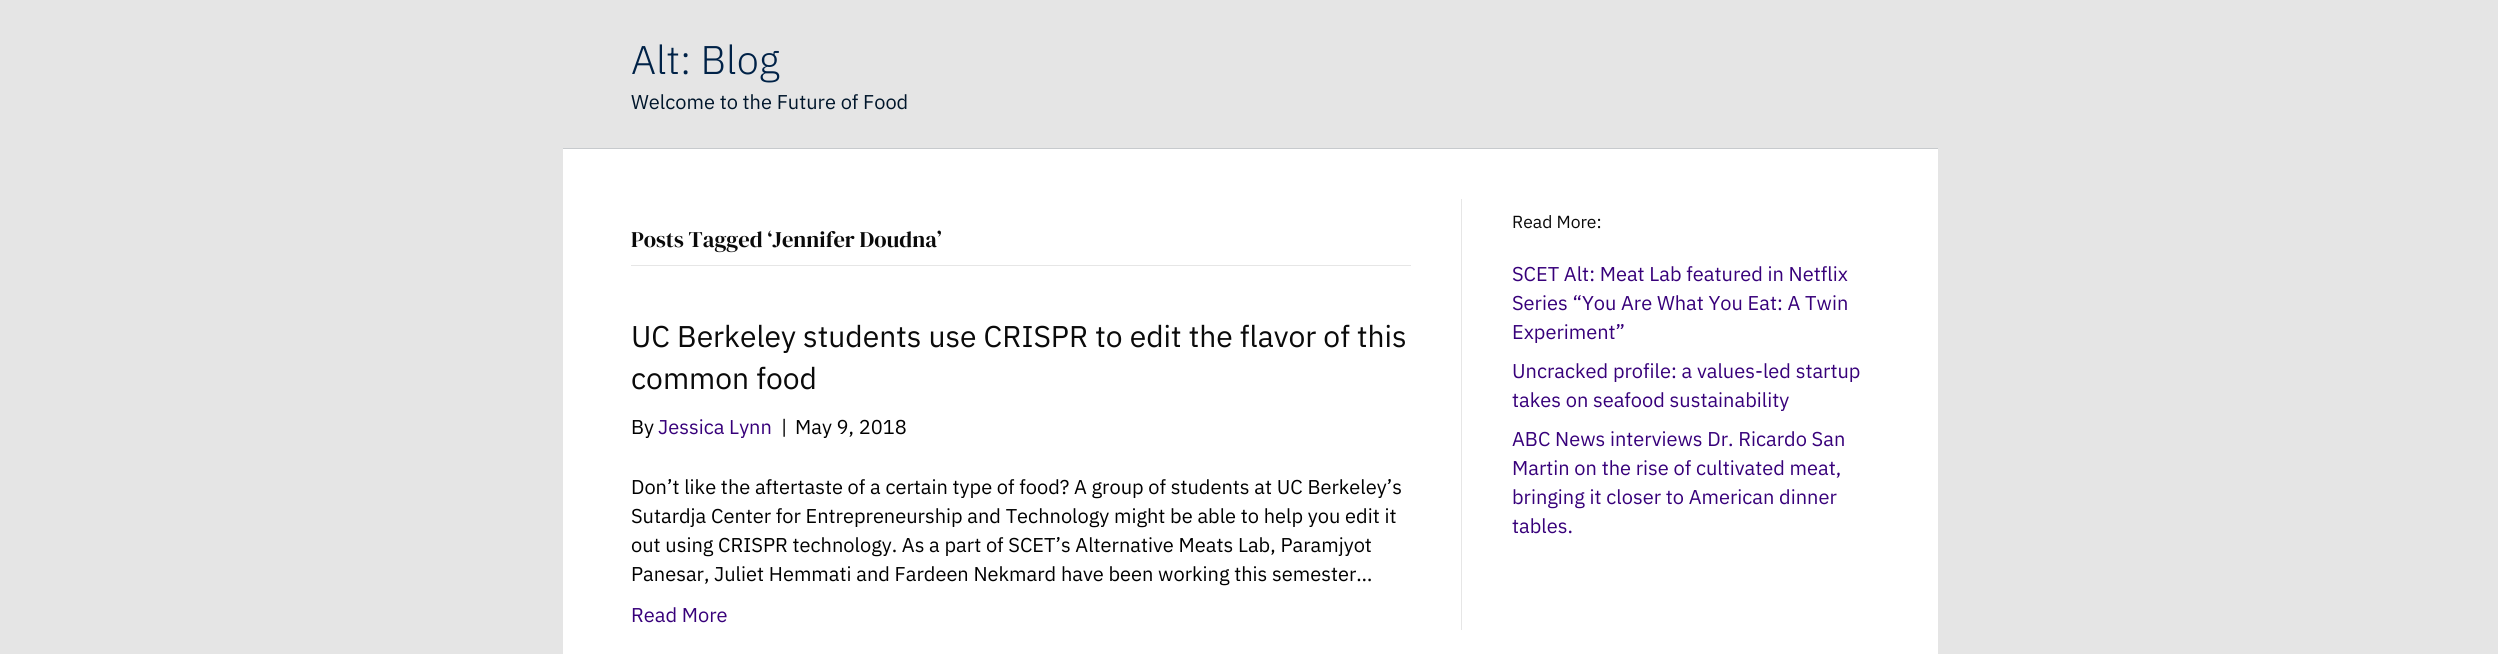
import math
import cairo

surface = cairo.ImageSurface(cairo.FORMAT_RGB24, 2498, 654)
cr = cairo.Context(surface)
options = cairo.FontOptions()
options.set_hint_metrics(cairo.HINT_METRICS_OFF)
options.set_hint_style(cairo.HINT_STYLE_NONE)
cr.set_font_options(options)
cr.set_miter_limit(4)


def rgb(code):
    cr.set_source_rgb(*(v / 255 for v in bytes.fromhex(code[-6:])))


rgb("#e5e5e5")
cr.paint()
for x, y, w, h, color in [
    (563, 148, 1375, 1, "#c7cacd"),
    (563, 149, 1375, 505, "#ffffff"),
    (1461, 199, 1, 431, "#e6e6e6"),
    (631, 265, 780, 1, "#e6e6e6"),
]:
    rgb(color)
    cr.rectangle(x, y, w, h)
    cr.fill()
cr.select_font_face("IBM Plex Sans Light")
cr.set_font_size(40)
rgb("#002247")
cr.move_to(631, 74)
cr.show_text("Alt: Blog")
cr.select_font_face("IBM Plex Sans")
cr.set_font_size(20)
rgb("#00162b")
cr.move_to(631, 109)
cr.show_text("Welcome to the Future of Food")
cr.select_font_face("DM Serif Display")
cr.set_font_size(22.5)
rgb("#0a0a0a")
cr.move_to(631, 247)
cr.show_text("Posts Tagged ‘Jennifer Doudna’")
cr.select_font_face("IBM Plex Sans")
cr.set_font_size(30)
cr.move_to(631, 347)
cr.show_text("UC Berkeley students use CRISPR to edit the flavor of this")
cr.move_to(631, 389)
cr.show_text("common food")
cr.set_font_size(20)
rgb("#000000")
cr.move_to(631, 434)
cr.show_text("By")
rgb("#37007a")
cr.move_to(658, 434)
cr.show_text("Jessica Lynn")
rgb("#000000")
for x, y, s in [
    (781, 434, "|"),
    (795, 434, "May 9, 2018"),
    (631, 494, "Don’t like the aftertaste of a certain type of food? A group of students at UC Berkeley’s"),
    (631, 523, "Sutardja Center for Entrepreneurship and Technology might be able to help you edit it"),
    (631, 552, "out using CRISPR technology. As a part of SCET’s Alternative Meats Lab, Paramjyot"),
    (631, 581, "Panesar, Juliet Hemmati and Fardeen Nekmard have been working this semester…"),
]:
    cr.move_to(x, y)
    cr.show_text(s)
rgb("#37007a")
cr.move_to(631, 622)
cr.show_text("Read More")
cr.set_font_size(17.5)
rgb("#0a0a0a")
cr.move_to(1512, 228)
cr.show_text("Read More:")
cr.set_font_size(20)
rgb("#37007a")
for x, y, s in [
    (1512, 281, "SCET Alt: Meat Lab featured in Netflix"),
    (1512, 310, "Series “You Are What You Eat: A Twin"),
    (1512, 339, "Experiment”"),
    (1512, 378, "Uncracked profile: a values-led startup"),
    (1512, 407, "takes on seafood sustainability"),
    (1512, 446, "ABC News interviews Dr. Ricardo San"),
    (1512, 475, "Martin on the rise of cultivated meat,"),
    (1512, 504, "bringing it closer to American dinner"),
    (1512, 533, "tables."),
]:
    cr.move_to(x, y)
    cr.show_text(s)
surface.write_to_png("page.png")
